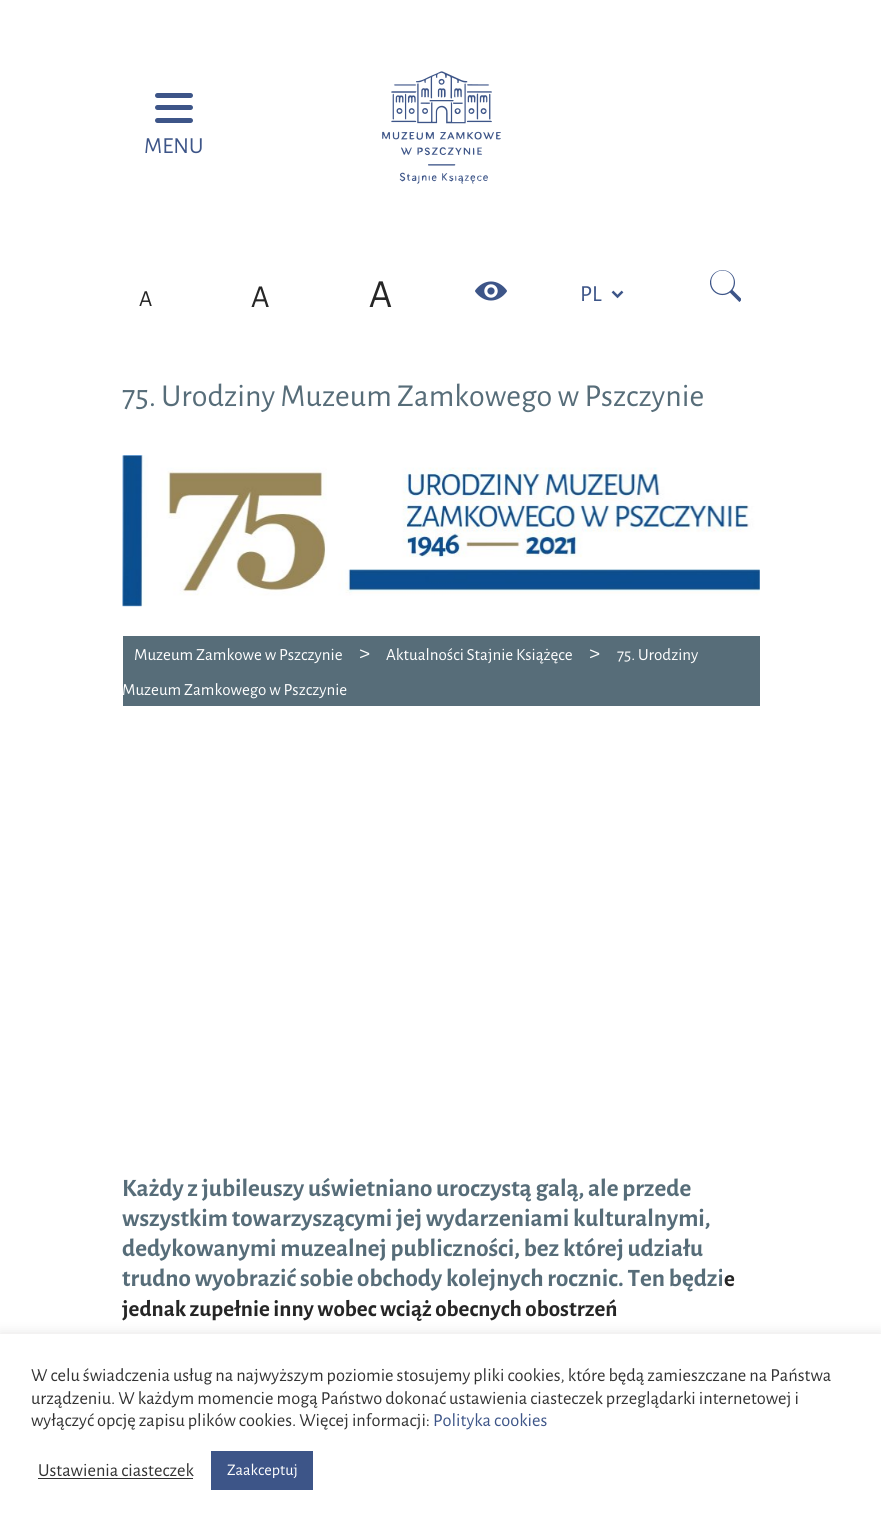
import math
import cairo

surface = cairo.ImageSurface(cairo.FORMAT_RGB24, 881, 1527)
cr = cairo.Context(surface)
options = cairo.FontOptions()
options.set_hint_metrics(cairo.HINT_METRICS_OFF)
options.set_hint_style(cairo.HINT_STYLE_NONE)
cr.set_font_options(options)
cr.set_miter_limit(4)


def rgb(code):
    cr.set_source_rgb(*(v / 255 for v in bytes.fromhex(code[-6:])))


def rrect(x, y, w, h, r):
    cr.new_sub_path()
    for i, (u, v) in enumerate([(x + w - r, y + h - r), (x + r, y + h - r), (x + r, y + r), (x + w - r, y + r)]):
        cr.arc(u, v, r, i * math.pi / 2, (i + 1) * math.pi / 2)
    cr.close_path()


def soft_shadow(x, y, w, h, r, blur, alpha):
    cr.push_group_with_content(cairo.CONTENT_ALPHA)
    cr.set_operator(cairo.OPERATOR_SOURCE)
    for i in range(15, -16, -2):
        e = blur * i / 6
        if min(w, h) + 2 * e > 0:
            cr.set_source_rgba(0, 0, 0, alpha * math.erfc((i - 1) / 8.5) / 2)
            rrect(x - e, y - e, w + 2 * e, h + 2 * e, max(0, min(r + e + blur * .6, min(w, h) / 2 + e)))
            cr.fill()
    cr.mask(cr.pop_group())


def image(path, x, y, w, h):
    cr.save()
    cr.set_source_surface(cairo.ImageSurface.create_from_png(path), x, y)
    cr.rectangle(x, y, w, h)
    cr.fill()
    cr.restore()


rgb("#ffffff")
cr.paint()
rgb("#3d5588")
rrect(155, 93, 38, 5, 2.5)
cr.fill()
rrect(155, 105, 38, 5, 2.5)
cr.fill()
rrect(155, 118, 38, 5, 2.5)
cr.fill()
image("img/1.png", 382, 71, 119, 113)
image("img/2.png", 475, 281, 32, 20)
cr.new_path()
cr.move_to(612.5, 291.5)
cr.line_to(617.5, 296.5)
cr.line_to(622.5, 291.5)
cr.set_line_width(2.5)
cr.stroke()
image("img/3.png", 710, 270, 31, 32)
image("img/4.png", 122, 455, 638, 152)
rgb("#576d79")
cr.rectangle(123, 636, 637, 70)
cr.fill()
rgb("#acabab")
soft_shadow(0, 1333, 881, 193, 0, 6, 0.3)
for x, y, w, h, color in [
    (0, 1334, 881, 193, "#ffffff"),
    (38, 1478, 155, 1, "#333333"),
    (211, 1451, 102, 39, "#3d5588"),
]:
    rgb(color)
    cr.rectangle(x, y, w, h)
    cr.fill()
cr.select_font_face("Alegreya Sans")
cr.set_font_size(23)
cr.move_to(144, 153)
cr.show_text("MENU")
rgb("#262626")
cr.move_to(139, 306)
cr.show_text("A")
cr.set_font_size(32)
cr.move_to(251, 307)
cr.show_text("A")
cr.set_font_size(40)
cr.move_to(369, 307)
cr.show_text("A")
cr.set_font_size(23)
rgb("#3d5588")
cr.move_to(580, 301)
cr.show_text("PL")
cr.set_font_size(32)
rgb("#576d79")
cr.move_to(122, 406)
cr.show_text("75. Urodziny Muzeum Zamkowego w Pszczynie")
cr.set_font_size(17)
rgb("#ffffff")
cr.move_to(134, 660)
cr.show_text("Muzeum Zamkowe w Pszczynie")
cr.set_font_size(23)
cr.move_to(359, 660)
cr.show_text(">")
cr.set_font_size(17)
cr.move_to(386, 660)
cr.show_text("Aktualności Stajnie Książęce")
cr.set_font_size(23)
cr.move_to(589, 660)
cr.show_text(">")
cr.set_font_size(17)
cr.move_to(617, 660)
cr.show_text("75. Urodziny")
cr.move_to(122, 695)
cr.show_text("Muzeum Zamkowego w Pszczynie")
cr.select_font_face("Alegreya Sans", cairo.FONT_SLANT_NORMAL, cairo.FONT_WEIGHT_BOLD)
cr.set_font_size(25)
rgb("#576d79")
for x, y, s in [
    (122, 1196, "Każdy z jubileuszy uświetniano uroczystą galą, ale przede"),
    (122, 1226, "wszystkim towarzyszącymi jej wydarzeniami kulturalnymi,"),
    (122, 1256, "dedykowanymi muzealnej publiczności, bez której udziału"),
    (122, 1286, "trudno wyobrazić sobie obchody kolejnych rocznic. Ten będzi"),
]:
    cr.move_to(x, y)
    cr.show_text(s)
cr.set_font_size(23)
rgb("#262626")
cr.move_to(724, 1286)
cr.show_text("e")
cr.move_to(122, 1316)
cr.show_text("jednak zupełnie inny wobec wciąż obecnych obostrzeń")
cr.select_font_face("Alegreya Sans")
cr.set_font_size(18.35)
rgb("#333333")
for x, y, s in [
    (31, 1381, "W celu świadczenia usług na najwyższym poziomie stosujemy pliki cookies, które będą zamieszczane na Państwa"),
    (31, 1404, "urządzeniu. W każdym momencie mogą Państwo dokonać ustawienia ciasteczek przeglądarki internetowej i"),
    (31, 1426, "wyłączyć opcję zapisu plików cookies. Więcej informacji:"),
]:
    cr.move_to(x, y)
    cr.show_text(s)
rgb("#3d5588")
cr.move_to(433, 1426)
cr.show_text("Polityka cookies")
rgb("#333333")
cr.move_to(38, 1476)
cr.show_text("Ustawienia ciasteczek")
cr.set_font_size(16.25)
rgb("#ffffff")
cr.move_to(227, 1475)
cr.show_text("Zaakceptuj")
surface.write_to_png("page.png")
